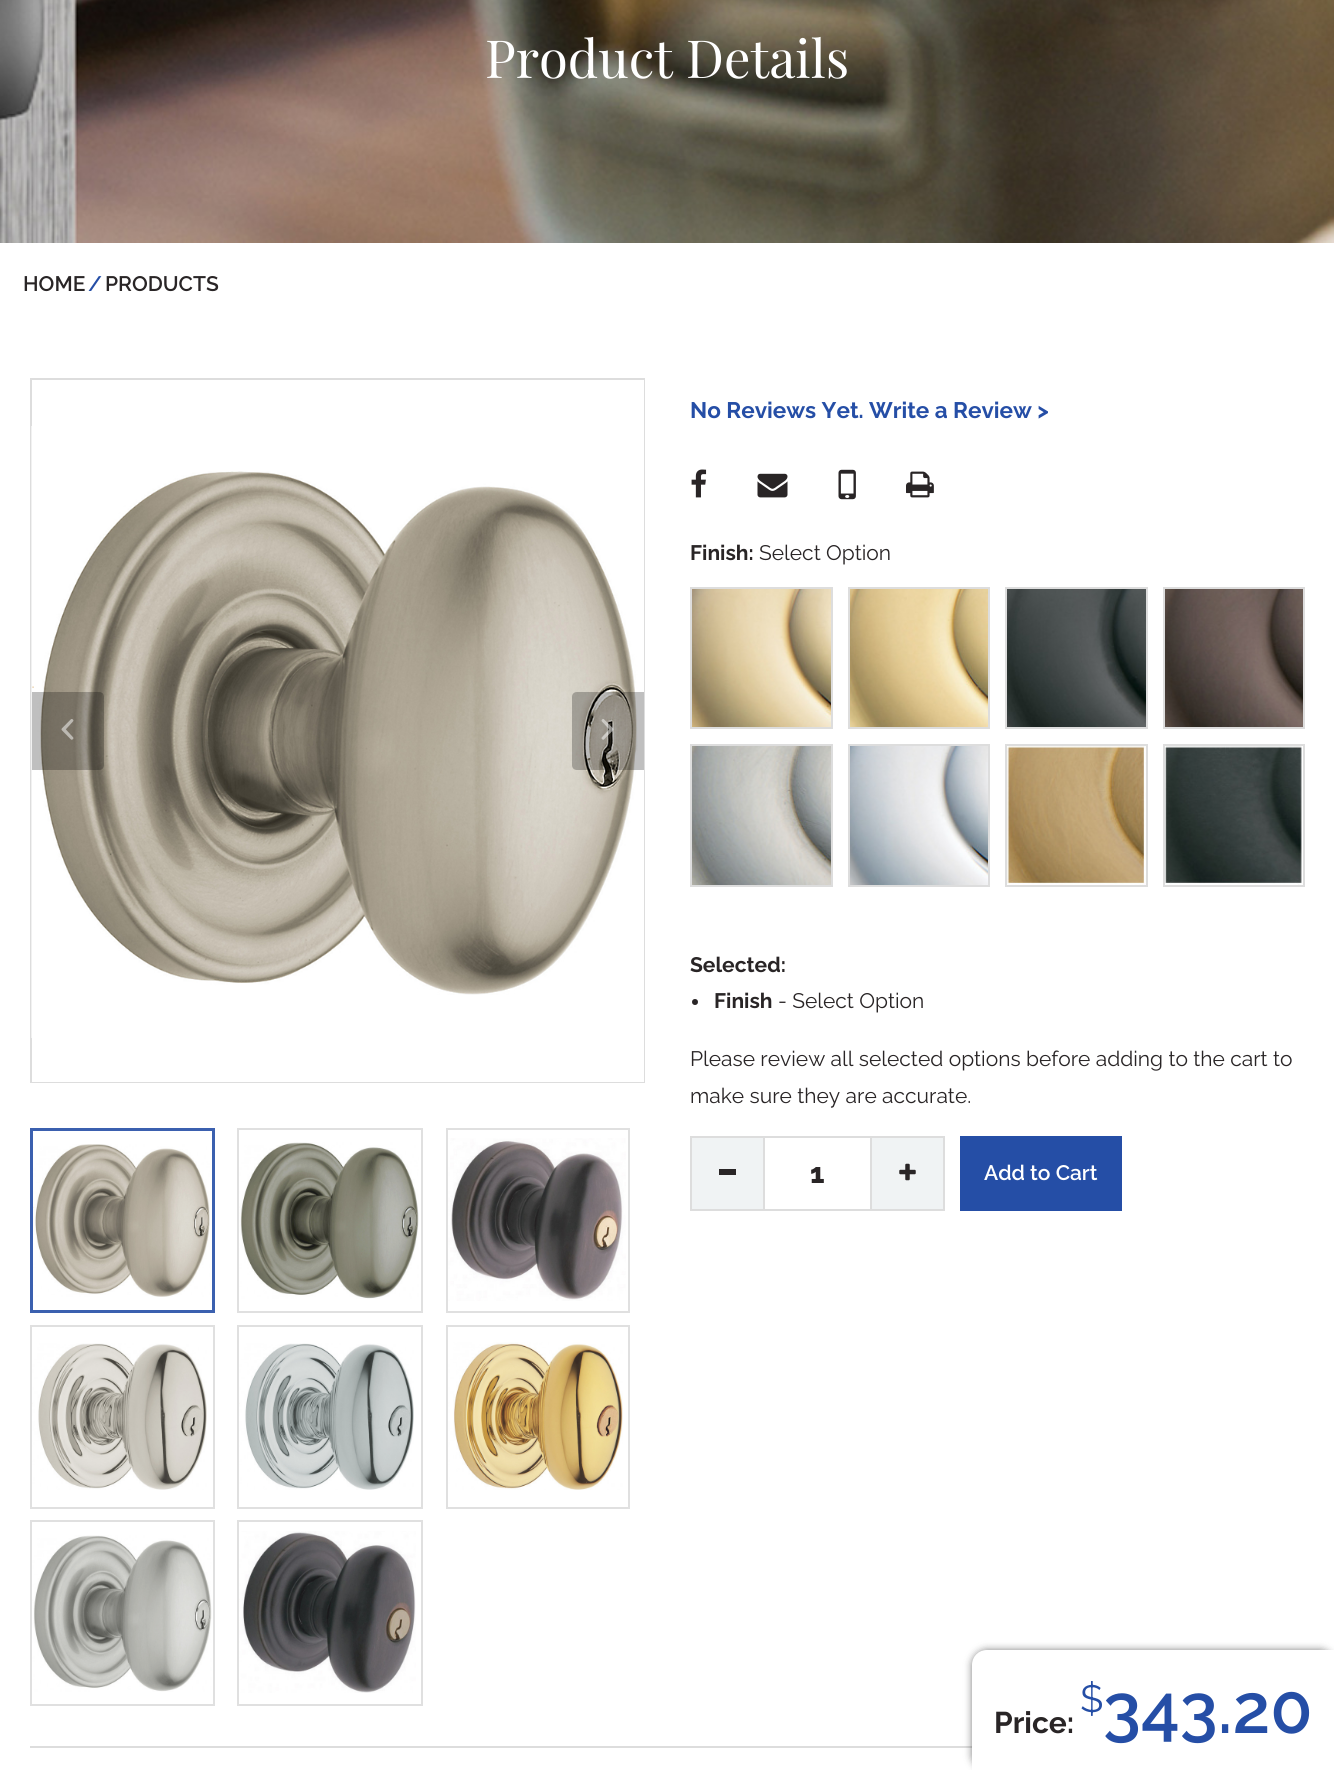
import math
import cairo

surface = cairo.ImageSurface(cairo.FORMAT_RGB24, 1334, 1770)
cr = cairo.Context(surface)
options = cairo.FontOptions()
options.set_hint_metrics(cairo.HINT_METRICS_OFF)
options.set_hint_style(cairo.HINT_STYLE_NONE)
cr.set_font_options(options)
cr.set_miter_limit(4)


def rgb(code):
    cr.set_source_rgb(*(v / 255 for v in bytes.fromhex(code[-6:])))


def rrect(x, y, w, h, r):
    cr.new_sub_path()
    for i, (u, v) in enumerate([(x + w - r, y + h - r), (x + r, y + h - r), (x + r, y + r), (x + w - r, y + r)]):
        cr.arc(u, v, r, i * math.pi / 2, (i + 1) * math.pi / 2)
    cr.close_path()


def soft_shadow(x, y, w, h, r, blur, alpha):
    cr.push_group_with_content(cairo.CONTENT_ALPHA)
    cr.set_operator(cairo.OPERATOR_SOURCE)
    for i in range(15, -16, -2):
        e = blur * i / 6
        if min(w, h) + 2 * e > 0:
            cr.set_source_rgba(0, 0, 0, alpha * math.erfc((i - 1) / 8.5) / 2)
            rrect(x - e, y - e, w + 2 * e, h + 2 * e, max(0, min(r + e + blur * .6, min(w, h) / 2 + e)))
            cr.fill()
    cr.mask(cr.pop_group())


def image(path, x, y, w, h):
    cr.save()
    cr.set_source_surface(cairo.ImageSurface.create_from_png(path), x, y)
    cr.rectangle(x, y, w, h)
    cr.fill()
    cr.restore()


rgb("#ffffff")
cr.paint()
image("img/1.png", 0, 0, 1334, 243)
cr.rectangle(31, 379, 613, 703)
rgb("#dddddd")
cr.stroke()
image("img/2.png", 31, 426, 1, 612)
rgb("#ffffff")
cr.rectangle(32, 380, 612, 702)
cr.fill()
image("img/3.png", 32, 471, 606, 524)
image("img/4.png", 31, 426, 1, 612)
image("img/5.png", 31, 426, 1, 612)
cr.set_source_rgba(0, 0, 0, 0.25)
cr.new_path()
cr.move_to(32, 692)
cr.line_to(99, 692)
cr.curve_to(102, 692, 104, 694, 104, 697)
cr.line_to(104, 765)
cr.curve_to(104, 768, 102, 770, 99, 770)
cr.line_to(32, 770)
cr.close_path()
cr.fill()
image("img/6.png", 61, 719, 13, 21)
cr.new_path()
cr.move_to(577, 692)
cr.line_to(644, 692)
cr.line_to(644, 770)
cr.line_to(577, 770)
cr.curve_to(574, 770, 572, 768, 572, 765)
cr.line_to(572, 697)
cr.curve_to(572, 694, 574, 692, 577, 692)
cr.close_path()
cr.fill()
image("img/7.png", 601, 719, 13, 21)
image("img/8.png", 33, 1144, 177, 153)
cr.rectangle(31.5, 1129.5, 182, 182)
rgb("#3b60af")
cr.set_line_width(3)
cr.stroke()
image("img/9.png", 239, 1142, 180, 157)
cr.rectangle(238, 1129, 184, 183)
rgb("#e0e0e0")
cr.set_line_width(2)
cr.stroke()
image("img/10.png", 448, 1138, 178, 163)
cr.rectangle(447, 1129, 182, 183)
cr.stroke()
image("img/11.png", 32, 1343, 175, 147)
cr.rectangle(31, 1326, 183, 182)
cr.stroke()
image("img/12.png", 239, 1343, 175, 147)
cr.rectangle(238, 1326, 184, 182)
cr.stroke()
image("img/13.png", 448, 1342, 175, 148)
cr.rectangle(447, 1326, 182, 182)
cr.stroke()
image("img/14.png", 32, 1535, 180, 157)
cr.rectangle(31, 1521, 183, 184)
cr.stroke()
image("img/15.png", 239, 1531, 177, 162)
cr.rectangle(238, 1521, 184, 184)
cr.stroke()
image("img/16.png", 691, 469, 16, 29)
image("img/17.png", 757, 473, 31, 25)
image("img/18.png", 838, 469, 18, 31)
image("img/19.png", 906, 471, 28, 27)
image("img/20.png", 692, 589, 139, 138)
cr.rectangle(691, 588, 141, 140)
rgb("#dddddd")
cr.stroke()
image("img/21.png", 850, 589, 138, 138)
cr.rectangle(849, 588, 140, 140)
cr.stroke()
image("img/22.png", 1007, 589, 139, 138)
cr.rectangle(1006, 588, 141, 140)
cr.stroke()
image("img/23.png", 1165, 589, 138, 138)
cr.rectangle(1164, 588, 140, 140)
cr.stroke()
image("img/24.png", 692, 746, 139, 139)
cr.rectangle(691, 745, 141, 141)
cr.stroke()
image("img/25.png", 850, 746, 138, 139)
cr.rectangle(849, 745, 140, 141)
cr.stroke()
image("img/26.png", 1007, 746, 139, 139)
cr.rectangle(1006, 745, 141, 141)
cr.stroke()
image("img/27.png", 1165, 746, 137, 139)
cr.rectangle(1164, 745, 140, 141)
cr.stroke()
rgb("#292526")
cr.arc(695, 1002, 3, 0, 2 * math.pi)
cr.fill()
rgb("#f0f3f4")
cr.rectangle(691, 1137, 73, 73)
cr.fill_preserve()
rgb("#dddddd")
cr.stroke()
for x, y, w, h, color in [
    (719, 1169, 17, 6, "#292526"),
    (765, 1136, 105, 2, "#dddddd"),
    (765, 1209, 105, 2, "#dddddd"),
]:
    rgb(color)
    cr.rectangle(x, y, w, h)
    cr.fill()
rgb("#f0f3f4")
cr.rectangle(871, 1137, 73, 73)
cr.fill_preserve()
rgb("#dddddd")
cr.stroke()
image("img/28.png", 899, 1163, 17, 18)
rgb("#254ea6")
cr.rectangle(960, 1136, 162, 75)
cr.fill()
rgb("#dddddd")
cr.rectangle(30, 1746, 942, 2)
cr.fill()
rgb("#000000")
soft_shadow(972, 1650, 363, 120, 15, 4, 0.5)
rgb("#ffffff")
cr.new_path()
cr.move_to(987, 1650)
cr.line_to(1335, 1650)
cr.line_to(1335, 1770)
cr.line_to(972, 1770)
cr.line_to(972, 1665)
cr.curve_to(972, 1656.5, 978.5, 1650, 987, 1650)
cr.close_path()
cr.fill()
cr.select_font_face("Playfair Display")
cr.set_font_size(52.5)
cr.move_to(485, 78)
cr.show_text("Product Details")
cr.select_font_face("Raleway SemiBold")
cr.set_font_size(21)
rgb("#292526")
cr.move_to(23, 291)
cr.show_text("HOME")
rgb("#254ea6")
cr.move_to(88, 291)
cr.show_text("/")
rgb("#292526")
cr.move_to(105, 291)
cr.show_text("PRODUCTS")
cr.select_font_face("Raleway", cairo.FONT_SLANT_NORMAL, cairo.FONT_WEIGHT_BOLD)
cr.set_font_size(22.5)
rgb("#254ea6")
cr.move_to(690, 418)
cr.show_text("No Reviews Yet. Write a Review >")
cr.set_font_size(21)
rgb("#292526")
cr.move_to(690, 560)
cr.show_text("Finish:")
cr.select_font_face("Raleway")
cr.move_to(759, 560)
cr.show_text("Select Option")
cr.select_font_face("Raleway", cairo.FONT_SLANT_NORMAL, cairo.FONT_WEIGHT_BOLD)
cr.move_to(690, 972)
cr.show_text("Selected:")
cr.move_to(714, 1008)
cr.show_text("Finish")
cr.select_font_face("Raleway")
for x, y, s in [
    (778, 1008, "- Select Option"),
    (690, 1066, "Please review all selected options before adding to the cart to"),
    (690, 1103, "make sure they are accurate."),
]:
    cr.move_to(x, y)
    cr.show_text(s)
cr.select_font_face("Raleway ExtraBold")
cr.set_font_size(28)
cr.move_to(810, 1183)
cr.show_text("1")
cr.select_font_face("Raleway SemiBold")
cr.set_font_size(21)
rgb("#ffffff")
cr.move_to(984, 1180)
cr.show_text("Add to Cart")
cr.select_font_face("Raleway", cairo.FONT_SLANT_NORMAL, cairo.FONT_WEIGHT_BOLD)
cr.set_font_size(30)
rgb("#292526")
cr.move_to(994, 1733)
cr.show_text("Price:")
cr.select_font_face("Raleway")
cr.set_font_size(38)
rgb("#254ea6")
cr.move_to(1080, 1712)
cr.show_text("$")
cr.select_font_face("Raleway SemiBold")
cr.set_font_size(69)
cr.move_to(1103, 1733)
cr.show_text("343.20")
surface.write_to_png("page.png")
